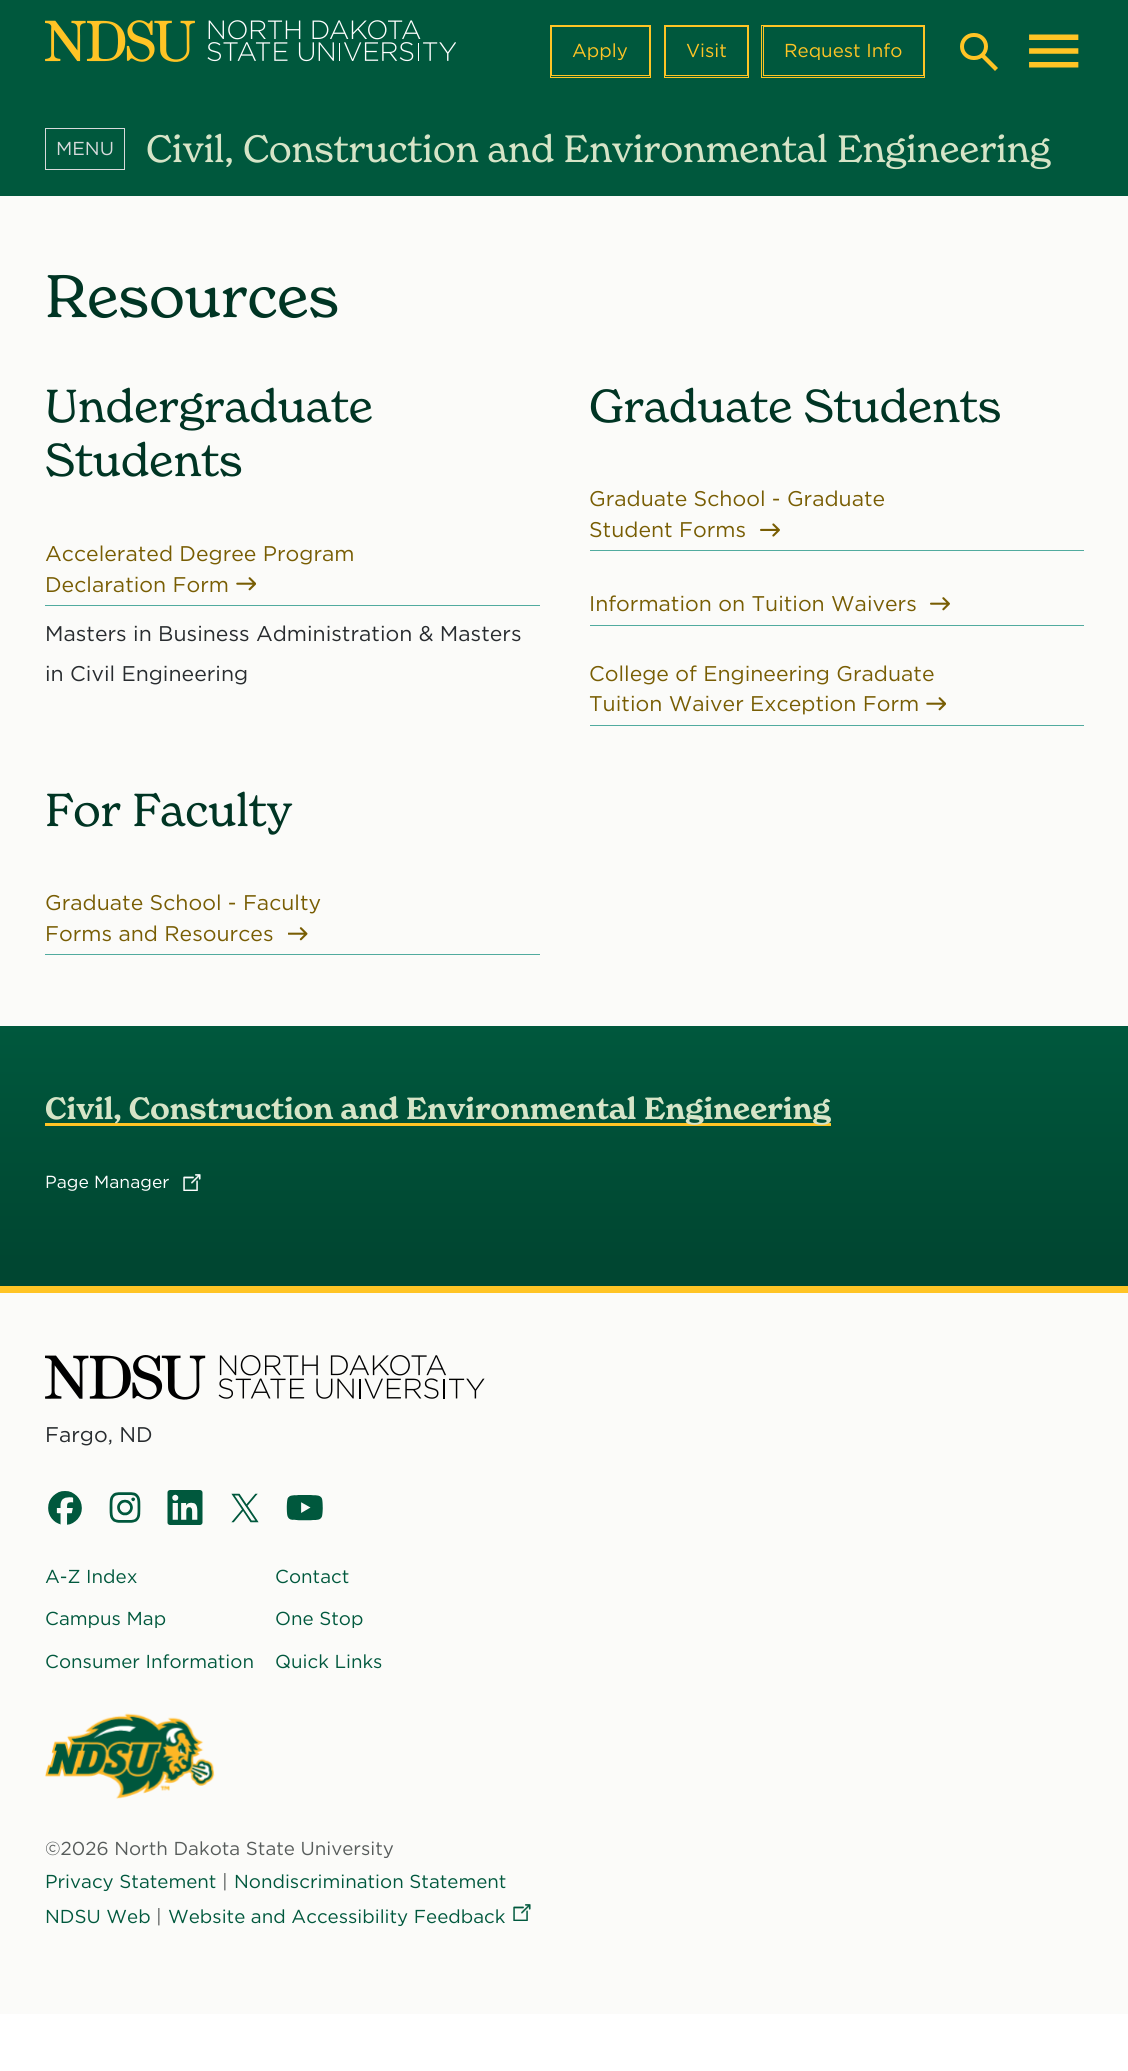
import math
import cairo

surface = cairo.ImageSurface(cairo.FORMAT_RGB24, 1128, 2071)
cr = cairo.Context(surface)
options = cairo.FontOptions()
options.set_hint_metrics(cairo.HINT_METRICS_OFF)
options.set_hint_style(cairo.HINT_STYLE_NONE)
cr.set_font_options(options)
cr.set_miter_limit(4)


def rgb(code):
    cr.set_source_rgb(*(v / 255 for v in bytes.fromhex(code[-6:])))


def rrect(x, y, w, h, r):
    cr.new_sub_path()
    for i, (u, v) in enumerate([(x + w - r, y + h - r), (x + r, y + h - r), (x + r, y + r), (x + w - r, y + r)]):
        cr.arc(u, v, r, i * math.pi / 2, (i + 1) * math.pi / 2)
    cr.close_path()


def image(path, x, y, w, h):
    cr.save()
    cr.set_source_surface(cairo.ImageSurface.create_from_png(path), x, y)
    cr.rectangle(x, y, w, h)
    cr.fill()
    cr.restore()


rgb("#ffffff")
cr.paint()
rgb("#00583d")
cr.rectangle(0, 0, 1128, 196)
cr.fill()
image("img/1.png", 45, 20, 411, 42)
cr.rectangle(551.5, 26.5, 98, 49)
rgb("#ffc425")
cr.set_line_width(1)
cr.stroke()
cr.rectangle(550.5, 25.5, 100, 52)
cr.stroke()
cr.rectangle(665.5, 26.5, 82, 49)
cr.stroke()
cr.rectangle(664.5, 25.5, 84, 52)
cr.stroke()
cr.rectangle(763.5, 26.5, 160, 49)
cr.stroke()
cr.rectangle(761.5, 25.5, 163, 52)
cr.stroke()
cr.new_path()
cr.move_to(981, 57)
cr.line_to(984, 54)
cr.line_to(998, 68)
cr.line_to(995, 71)
cr.close_path()
cr.fill()
rrect(962, 35, 24, 23, 11.5)
cr.set_line_width(4)
cr.stroke()
image("img/2.png", 1029, 34, 50, 34)
cr.rectangle(45.5, 128.5, 79, 41)
rgb("#d7dadb")
cr.set_line_width(1)
cr.stroke()
rgb("#fbfbf9")
cr.rectangle(0, 196, 1128, 830)
cr.fill()
rgb("#51ab9f")
cr.rectangle(45, 605, 495, 1)
cr.fill()
image("img/3.png", 236, 577, 20, 14)
cr.rectangle(590, 550, 494, 1)
cr.fill()
image("img/4.png", 760, 523, 20, 14)
cr.rectangle(590, 625, 494, 1)
cr.fill()
image("img/5.png", 930, 597, 20, 14)
cr.rectangle(590, 725, 494, 1)
cr.fill()
image("img/3.png", 926, 697, 20, 14)
cr.rectangle(45, 954, 495, 1)
cr.fill()
image("img/6.png", 288, 927, 20, 14)
gradient = cairo.LinearGradient(564, 1026, 564, 1286)
gradient.add_color_stop_rgba(0, 0, 0.345, 0.239, 1)
gradient.add_color_stop_rgba(0.9, 0, 0.275, 0.192, 1)
cr.set_source(gradient)
cr.rectangle(0, 1026, 1128, 260)
cr.fill()
rgb("#ffc425")
cr.rectangle(45, 1123, 786, 3)
cr.fill()
image("img/7.png", 183, 1174, 18, 17)
rgb("#fbfbf9")
cr.rectangle(0, 1293, 1128, 721)
cr.fill()
rgb("#ffc425")
cr.rectangle(0, 1286, 1128, 7)
cr.fill()
image("img/8.png", 45, 1355, 440, 45)
image("img/9.png", 48, 1491, 34, 34)
image("img/10.png", 109, 1492, 32, 31)
image("img/11.png", 167, 1490, 36, 35)
image("img/12.png", 231, 1493, 28, 30)
image("img/13.png", 286, 1495, 37, 26)
image("img/14.png", 45, 1713, 170, 86)
image("img/15.png", 513, 1904, 18, 17)
cr.select_font_face("Gotham")
cr.set_font_size(18.75)
for x, y, s in [
    (572, 57, "Apply"),
    (686, 57, "Visit"),
    (784, 57, "Request Info"),
]:
    cr.move_to(x, y)
    cr.show_text(s)
rgb("#d7dadb")
cr.move_to(56, 155)
cr.show_text("MENU")
cr.select_font_face("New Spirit")
cr.set_font_size(37.5)
rgb("#d6e4c7")
cr.move_to(146, 162)
cr.show_text("Civil, Construction and Environmental Engineering")
cr.set_font_size(59)
rgb("#003524")
cr.move_to(45, 317)
cr.show_text("Resources")
cr.set_font_size(45.5)
cr.move_to(45, 422)
cr.show_text("Undergraduate")
cr.move_to(45, 476)
cr.show_text("Students")
cr.select_font_face("Gotham")
cr.set_font_size(21.25)
rgb("#785d03")
cr.move_to(45, 561)
cr.show_text("Accelerated Degree Program")
cr.move_to(45, 592)
cr.show_text("Declaration Form")
rgb("#282c2f")
cr.move_to(45, 641)
cr.show_text("Masters in Business Administration & Masters")
cr.move_to(45, 681)
cr.show_text("in Civil Engineering")
cr.select_font_face("New Spirit")
cr.set_font_size(45.5)
rgb("#003524")
cr.move_to(589, 422)
cr.show_text("Graduate Students")
cr.select_font_face("Gotham")
cr.set_font_size(21.25)
rgb("#785d03")
for x, y, s in [
    (589, 506, "Graduate School - Graduate"),
    (589, 537, "Student Forms"),
    (589, 611, "Information on Tuition Waivers"),
    (589, 681, "College of Engineering Graduate"),
    (589, 711, "Tuition Waiver Exception Form"),
]:
    cr.move_to(x, y)
    cr.show_text(s)
cr.select_font_face("New Spirit")
cr.set_font_size(45.5)
rgb("#003524")
cr.move_to(45, 826)
cr.show_text("For Faculty")
cr.select_font_face("Gotham")
cr.set_font_size(21.25)
rgb("#785d03")
cr.move_to(45, 910)
cr.show_text("Graduate School - Faculty")
cr.move_to(45, 941)
cr.show_text("Forms and Resources")
cr.select_font_face("New Spirit SemiBold")
cr.set_font_size(30)
rgb("#d6e4c7")
cr.move_to(45, 1119)
cr.show_text("Civil, Construction and Environmental Engineering")
cr.select_font_face("Gotham")
cr.set_font_size(17.5)
rgb("#ffffff")
cr.move_to(45, 1188)
cr.show_text("Page Manager")
cr.set_font_size(21.25)
rgb("#282c2f")
cr.move_to(45, 1442)
cr.show_text("Fargo, ND")
cr.set_font_size(18.75)
rgb("#00583d")
for x, y, s in [
    (45, 1583, "A-Z Index"),
    (275, 1583, "Contact"),
    (45, 1625, "Campus Map"),
    (275, 1625, "One Stop"),
    (45, 1668, "Consumer Information"),
    (275, 1668, "Quick Links"),
]:
    cr.move_to(x, y)
    cr.show_text(s)
rgb("#575c5b")
cr.move_to(45, 1855)
cr.show_text("©2026 North Dakota State University")
rgb("#00583d")
cr.move_to(45, 1888)
cr.show_text("Privacy Statement")
rgb("#575c5b")
cr.move_to(222, 1888)
cr.show_text("|")
rgb("#00583d")
cr.move_to(234, 1888)
cr.show_text("Nondiscrimination Statement")
cr.move_to(45, 1923)
cr.show_text("NDSU Web")
rgb("#575c5b")
cr.move_to(156, 1923)
cr.show_text("|")
rgb("#00583d")
cr.move_to(168, 1923)
cr.show_text("Website and Accessibility Feedback")
surface.write_to_png("page.png")
